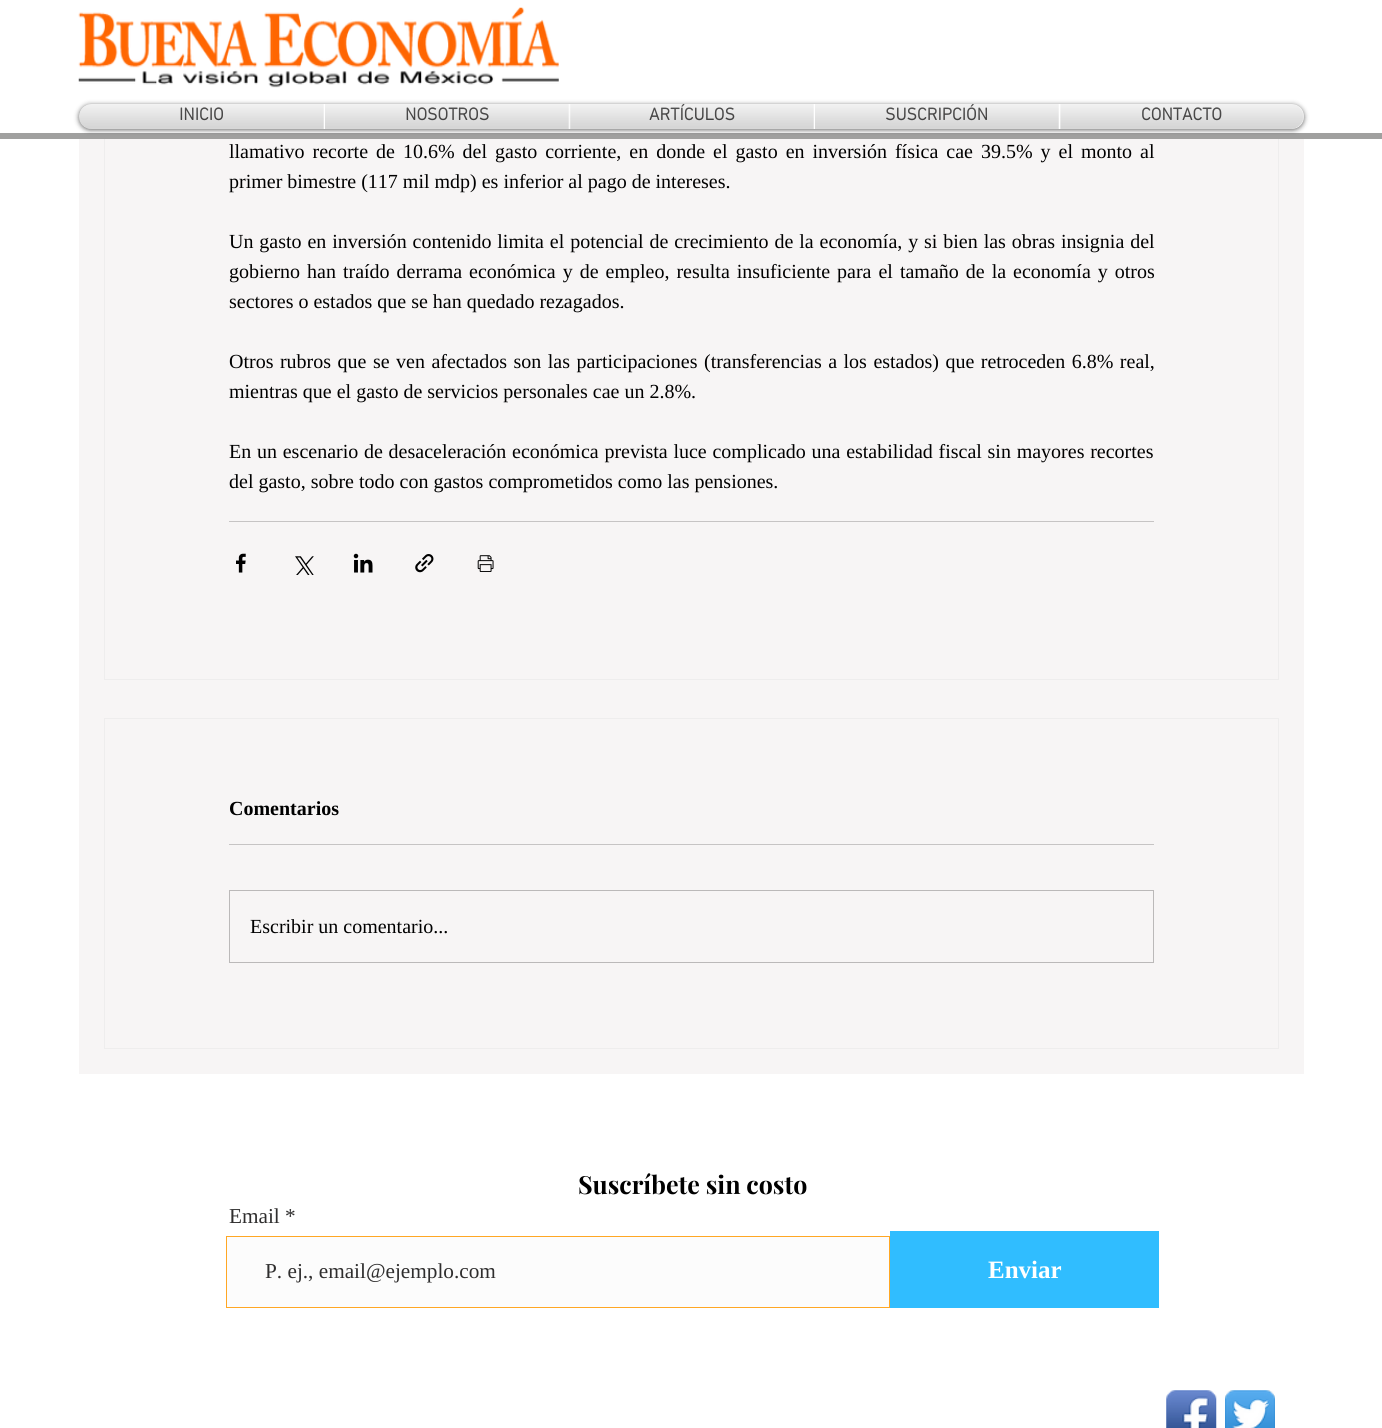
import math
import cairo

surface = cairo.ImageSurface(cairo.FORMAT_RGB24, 1382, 1428)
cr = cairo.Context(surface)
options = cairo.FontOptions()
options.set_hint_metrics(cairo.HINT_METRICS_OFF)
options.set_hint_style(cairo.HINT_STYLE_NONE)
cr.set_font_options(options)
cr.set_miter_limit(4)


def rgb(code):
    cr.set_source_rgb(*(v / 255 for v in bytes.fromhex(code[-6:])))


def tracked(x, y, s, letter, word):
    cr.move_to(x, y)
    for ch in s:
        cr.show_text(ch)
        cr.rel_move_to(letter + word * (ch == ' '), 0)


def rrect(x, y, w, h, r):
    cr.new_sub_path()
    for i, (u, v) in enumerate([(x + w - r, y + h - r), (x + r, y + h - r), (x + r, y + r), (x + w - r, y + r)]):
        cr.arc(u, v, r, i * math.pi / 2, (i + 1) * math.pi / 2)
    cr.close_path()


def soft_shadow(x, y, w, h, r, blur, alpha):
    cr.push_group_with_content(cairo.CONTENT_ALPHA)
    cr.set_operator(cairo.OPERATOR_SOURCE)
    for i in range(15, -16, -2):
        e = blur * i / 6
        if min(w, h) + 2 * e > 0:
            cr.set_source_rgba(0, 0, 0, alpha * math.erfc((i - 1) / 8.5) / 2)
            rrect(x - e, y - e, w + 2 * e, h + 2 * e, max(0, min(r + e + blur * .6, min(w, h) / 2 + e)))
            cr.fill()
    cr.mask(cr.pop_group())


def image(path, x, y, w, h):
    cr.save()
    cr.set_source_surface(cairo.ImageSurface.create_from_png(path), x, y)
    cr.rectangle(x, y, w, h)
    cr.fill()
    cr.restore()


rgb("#ffffff")
cr.paint()
rgb("#f7f5f5")
cr.rectangle(79, 139, 1225, 935)
cr.fill()
cr.rectangle(104.5, -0.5, 1174, 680)
rgb("#eeeded")
cr.set_line_width(1)
cr.stroke()
rgb("#ffffff")
cr.rectangle(104, 0, 1175, 133)
cr.fill()
rgb("#a0a09f")
cr.rectangle(0, 133, 1382, 6)
cr.fill()
image("img/1.png", 78, 7, 481, 81)
rgb("#000000")
soft_shadow(79, 105, 1225, 25, 12.5, 2.5, 0.6)
image("img/2.png", 79, 104, 1225, 11)
rgb("#ffffff")
cr.new_path()
cr.move_to(91.5, 104)
cr.line_to(324, 104)
cr.line_to(324, 129)
cr.line_to(91.5, 129)
cr.curve_to(84.5, 129, 79, 123.5, 79, 116.5)
cr.curve_to(79, 109.5, 84.5, 104, 91.5, 104)
cr.close_path()
cr.fill()
cr.rectangle(324, 104, 735, 25)
cr.fill()
cr.new_path()
cr.move_to(1059, 104)
cr.line_to(1291.5, 104)
cr.curve_to(1298.5, 104, 1304, 109.5, 1304, 116.5)
cr.curve_to(1304, 123.5, 1298.5, 129, 1291.5, 129)
cr.line_to(1059, 129)
cr.close_path()
cr.fill()
rgb("#c6c4c4")
cr.rectangle(229, 521, 925, 1)
cr.fill()
image("img/13.png", 236, 553, 10, 20)
image("img/14.png", 295, 556, 19, 19)
image("img/15.png", 353, 553, 20, 20)
image("img/16.png", 415, 554, 19, 19)
image("img/17.png", 477, 555, 17, 17)
cr.rectangle(104.5, 718.5, 1174, 330)
rgb("#eeeded")
cr.stroke()
rgb("#c6c4c4")
cr.rectangle(229, 844, 925, 1)
cr.fill()
cr.rectangle(229.5, 890.5, 924, 72)
rgb("#bbb9b9")
cr.stroke()
rgb("#fcfcfc")
cr.rectangle(226.5, 1236.5, 663, 71)
cr.fill_preserve()
rgb("#ffa724")
cr.stroke()
rgb("#30bdff")
cr.rectangle(890, 1231, 269, 77)
cr.fill()
image("img/18.png", 1166, 1390, 51, 38)
image("img/19.png", 1225, 1390, 50, 38)
cr.select_font_face("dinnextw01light", cairo.FONT_SLANT_NORMAL, cairo.FONT_WEIGHT_BOLD)
cr.set_font_size(17.5)
rgb("#2f2e2e")
cr.move_to(179, 120)
cr.show_text("INICIO")
image("img/3.png", 180, 108, 43, 12)
image("img/4.png", 79, 104, 245, 25)
cr.move_to(405, 120)
cr.show_text("NOSOTROS")
image("img/5.png", 406, 108, 82, 13)
image("img/6.png", 325, 104, 244, 25)
cr.move_to(649, 120)
cr.show_text("ARTÍCULOS")
image("img/7.png", 649, 104, 85, 16)
image("img/8.png", 569, 104, 245, 25)
cr.move_to(885, 120)
cr.show_text("SUSCRIPCIÓN")
image("img/9.png", 886, 104, 101, 16)
image("img/10.png", 815, 104, 244, 25)
cr.move_to(1141, 120)
cr.show_text("CONTACTO")
image("img/11.png", 1142, 108, 79, 12)
image("img/12.png", 1060, 104, 244, 25)
cr.select_font_face("Liberation Serif")
cr.set_font_size(20)
rgb("#000000")
tracked(229, 158, "llamativo recorte de 10.6% del gasto corriente, en donde el gasto en inversión física cae 39.5% y el monto al", 0, 3)
cr.move_to(229, 188)
cr.show_text("primer bimestre (117 mil mdp) es inferior al pago de intereses.")
tracked(229, 248, "Un gasto en inversión contenido limita el potencial de crecimiento de la economía, y si bien las obras insignia del", 0, 0.9)
tracked(229, 278, "gobierno han traído derrama económica y de empleo, resulta insuficiente para el tamaño de la economía y otros", 0, 2)
cr.move_to(229, 308)
cr.show_text("sectores o estados que se han quedado rezagados.")
tracked(229, 368, "Otros rubros que se ven afectados son las participaciones (transferencias a los estados) que retroceden 6.8% real,", 0, 1.5)
cr.move_to(229, 398)
cr.show_text("mientras que el gasto de servicios personales cae un 2.8%.")
tracked(229, 458, "En un escenario de desaceleración económica prevista luce complicado una estabilidad fiscal sin mayores recortes", 0, 0.75)
cr.move_to(229, 488)
cr.show_text("del gasto, sobre todo con gastos comprometidos como las pensiones.")
cr.select_font_face("Liberation Serif", cairo.FONT_SLANT_NORMAL, cairo.FONT_WEIGHT_BOLD)
cr.move_to(229, 815)
cr.show_text("Comentarios")
cr.select_font_face("Liberation Serif")
cr.move_to(250, 933)
cr.show_text("Escribir un comentario...")
cr.select_font_face("Playfair Display", cairo.FONT_SLANT_NORMAL, cairo.FONT_WEIGHT_BOLD)
cr.set_font_size(25)
cr.move_to(578, 1194)
cr.show_text("Suscríbete sin costo")
cr.select_font_face("Liberation Serif")
cr.set_font_size(21.25)
rgb("#2f2e2e")
cr.move_to(229, 1223)
cr.show_text("Email *")
cr.move_to(265, 1278)
cr.show_text("P. ej., email@ejemplo.com")
cr.select_font_face("Liberation Serif", cairo.FONT_SLANT_NORMAL, cairo.FONT_WEIGHT_BOLD)
cr.set_font_size(25)
rgb("#ffffff")
cr.move_to(988, 1278)
cr.show_text("Enviar")
surface.write_to_png("page.png")
